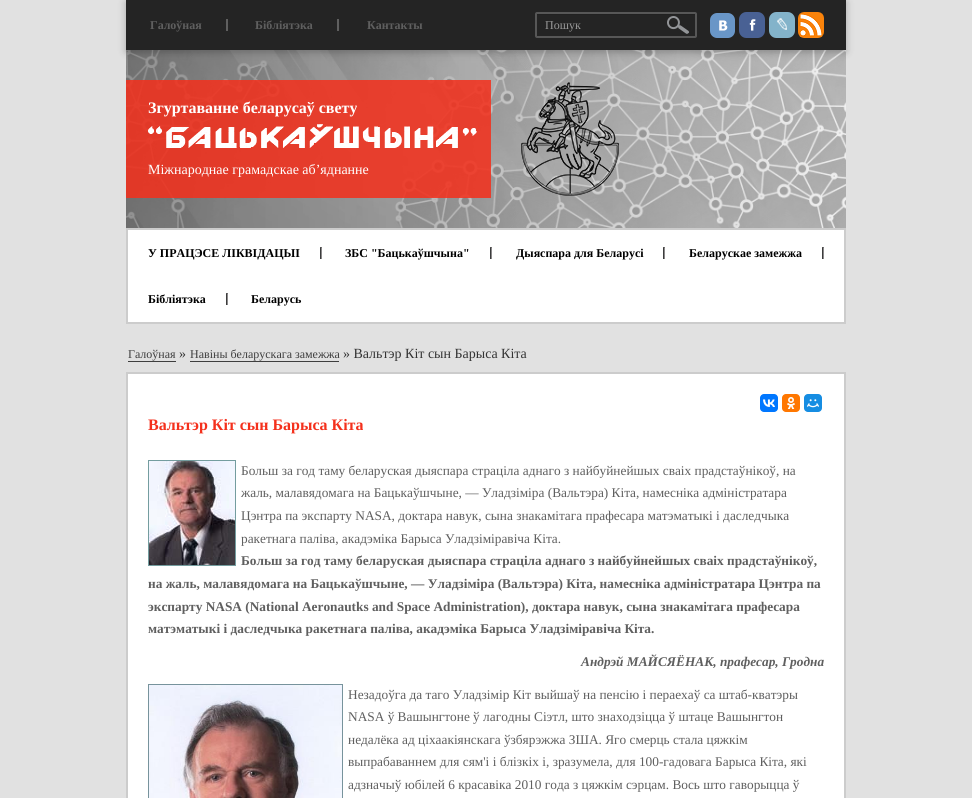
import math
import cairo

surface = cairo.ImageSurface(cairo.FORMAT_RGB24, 972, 798)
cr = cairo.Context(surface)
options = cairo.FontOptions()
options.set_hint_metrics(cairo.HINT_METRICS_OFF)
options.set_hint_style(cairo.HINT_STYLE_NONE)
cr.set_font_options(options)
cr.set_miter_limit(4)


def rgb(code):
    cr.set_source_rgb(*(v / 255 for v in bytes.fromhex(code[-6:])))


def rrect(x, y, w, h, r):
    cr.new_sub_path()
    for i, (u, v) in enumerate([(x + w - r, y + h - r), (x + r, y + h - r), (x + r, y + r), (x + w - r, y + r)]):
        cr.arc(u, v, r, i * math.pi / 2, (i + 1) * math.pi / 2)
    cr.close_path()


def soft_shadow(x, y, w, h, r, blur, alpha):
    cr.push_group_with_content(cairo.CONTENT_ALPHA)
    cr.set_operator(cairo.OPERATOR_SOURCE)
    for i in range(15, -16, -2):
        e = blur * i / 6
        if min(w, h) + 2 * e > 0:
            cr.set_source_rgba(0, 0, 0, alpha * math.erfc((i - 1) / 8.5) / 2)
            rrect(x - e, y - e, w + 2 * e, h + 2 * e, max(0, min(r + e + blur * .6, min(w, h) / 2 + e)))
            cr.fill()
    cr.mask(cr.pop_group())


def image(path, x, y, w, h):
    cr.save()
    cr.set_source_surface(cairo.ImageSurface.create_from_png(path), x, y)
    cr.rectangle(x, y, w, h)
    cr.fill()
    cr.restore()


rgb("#e1e1e1")
cr.paint()
image("img/7.png", 126, 50, 720, 178)
rgb("#000000")
soft_shadow(126, 2, 720, 50, 0, 4, 0.25)
for x, y, w, h, color in [
    (126, 0, 720, 50, "#242424"),
    (226, 19, 2, 12, "#5f5f5f"),
    (337, 19, 2, 12, "#5f5f5f"),
    (537, 14, 158, 1, "#212121"),
]:
    rgb(color)
    cr.rectangle(x, y, w, h)
    cr.fill()
rrect(536, 13, 160, 24, 1)
rgb("#575757")
cr.stroke()
image("img/1.png", 667, 16, 22, 18)
image("img/2.png", 710, 13, 25, 25)
image("img/3.png", 739, 12, 26, 26)
image("img/4.png", 769, 12, 26, 26)
image("img/5.png", 798, 12, 26, 26)
rgb("#ffffff")
cr.rectangle(127, 229, 718, 94)
cr.fill_preserve()
rgb("#cccccc")
cr.stroke()
image("img/6.png", 320, 247, 2, 12)
image("img/6.png", 490, 247, 2, 12)
image("img/6.png", 663, 247, 2, 12)
image("img/6.png", 822, 247, 2, 12)
image("img/6.png", 226, 293, 2, 12)
cr.set_source_rgba(0.957, 0.188, 0.11, 0.86)
cr.rectangle(126, 80, 365, 118)
cr.fill()
image("img/8.png", 148, 124, 329, 24)
image("img/9.png", 521, 82, 98, 114)
rgb("#3e3e3e")
cr.rectangle(128, 361, 48, 1)
cr.fill()
cr.rectangle(190, 361, 149, 1)
cr.fill()
rgb("#ffffff")
cr.rectangle(127, 373, 718, 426)
cr.fill_preserve()
rgb("#cccccc")
cr.stroke()
rgb("#0077ff")
rrect(760, 394, 18, 18, 4)
cr.fill()
image("img/10.png", 763, 399, 12, 8)
rgb("#ff7700")
rrect(782, 394, 18, 18, 4)
cr.fill()
image("img/11.png", 787, 397, 8, 12)
rgb("#168de2")
rrect(804, 394, 18, 18, 4)
cr.fill()
image("img/12.png", 807, 399, 12, 9)
cr.rectangle(148.5, 460.5, 87, 105)
rgb("#749d9f")
cr.set_line_width(1)
cr.stroke()
image("img/13.png", 149, 461, 86, 104)
cr.rectangle(148.5, 684.5, 194, 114)
rgb("#77939c")
cr.stroke()
image("img/14.png", 149, 685, 193, 113)
cr.select_font_face("Liberation Serif", cairo.FONT_SLANT_NORMAL, cairo.FONT_WEIGHT_BOLD)
cr.set_font_size(12)
rgb("#5f5f5f")
for x, y, s in [
    (150, 29, "Галоўная"),
    (255, 29, "Бібліятэка"),
    (367, 29, "Кантакты"),
]:
    cr.move_to(x, y)
    cr.show_text(s)
cr.select_font_face("Liberation Serif")
rgb("#999999")
cr.move_to(545, 29)
cr.show_text("Пошук")
cr.select_font_face("Liberation Serif", cairo.FONT_SLANT_NORMAL, cairo.FONT_WEIGHT_BOLD)
rgb("#000000")
for x, y, s in [
    (148, 257, "У ПРАЦЭСЕ ЛІКВІДАЦЫІ"),
    (345, 257, "ЗБС \"Бацькаўшчына\""),
    (516, 257, "Дыяспара для Беларусі"),
    (689, 257, "Беларускае замежжа"),
    (148, 303, "Бібліятэка"),
    (251, 303, "Беларусь"),
]:
    cr.move_to(x, y)
    cr.show_text(s)
cr.set_font_size(16)
rgb("#ffffff")
cr.move_to(148, 113)
cr.show_text("Згуртаванне беларусаў свету")
cr.select_font_face("Liberation Serif")
cr.set_font_size(14)
cr.move_to(148, 174)
cr.show_text("Міжнароднае грамадскае аб’яднанне")
cr.set_font_size(12)
rgb("#3e3e3e")
cr.move_to(128, 358)
cr.show_text("Галоўная")
cr.set_font_size(14)
rgb("#333333")
cr.move_to(179, 358)
cr.show_text("»")
cr.set_font_size(12)
rgb("#3e3e3e")
cr.move_to(190, 358)
cr.show_text("Навіны беларускага замежжа")
cr.set_font_size(14)
rgb("#333333")
cr.move_to(343, 358)
cr.show_text("» Вальтэр Кіт сын Барыса Кіта")
cr.select_font_face("Liberation Serif", cairo.FONT_SLANT_NORMAL, cairo.FONT_WEIGHT_BOLD)
cr.set_font_size(16)
rgb("#f4301c")
cr.move_to(148, 430)
cr.show_text("Вальтэр Кіт сын Барыса Кіта")
cr.select_font_face("Liberation Serif")
cr.set_font_size(13.33)
rgb("#5f5f5f")
for x, y, s in [
    (241, 475, "Больш за год таму беларуская дыяспара страціла аднаго з найбуйнейшых сваіх прадстаўнікоў, на"),
    (241, 497, "жаль, малавядомага на Бацькаўшчыне, — Уладзіміра (Вальтэра) Кіта, намесніка адміністратара"),
    (241, 520, "Цэнтра па экспарту NASA, доктара навук, сына знакамітага прафесара матэматыкі і даследчыка"),
    (241, 543, "ракетнага паліва, акадэміка Барыса Уладзіміравіча Кіта."),
]:
    cr.move_to(x, y)
    cr.show_text(s)
cr.select_font_face("Liberation Serif", cairo.FONT_SLANT_NORMAL, cairo.FONT_WEIGHT_BOLD)
for x, y, s in [
    (241, 565, "Больш за год таму беларуская дыяспара страціла аднаго з найбуйнейшых сваіх прадстаўнікоў,"),
    (148, 588, "на жаль, малавядомага на Бацькаўшчыне, — Уладзіміра (Вальтэра) Кіта, намесніка адміністратара Цэнтра па"),
    (148, 611, "экспарту NASA (National Aeronautks and Space Admіnіstratіon), доктара навук, сына знакамітага прафесара"),
    (148, 633, "матэматыкі і даследчыка ракетнага паліва, акадэміка Барыса Уладзіміравіча Кіта."),
]:
    cr.move_to(x, y)
    cr.show_text(s)
cr.select_font_face("Liberation Serif", cairo.FONT_SLANT_ITALIC, cairo.FONT_WEIGHT_BOLD)
cr.move_to(581, 666)
cr.show_text("Андрэй МАЙСЯЁНАК, прафесар, Гродна")
cr.select_font_face("Liberation Serif")
for x, y, s in [
    (348, 699, "Незадоўга да таго Уладзімір Кіт выйшаў на пенсію і пераехаў са штаб-кватэры"),
    (348, 721, "NASA ў Вашынгтоне ў лагодны Сіэтл, што знаходзіцца ў штаце Вашынгтон"),
    (348, 744, "недалёка ад ціхаакіянскага ўзбярэжжа ЗША. Яго смерць стала цяжкім"),
    (348, 766, "выпрабаваннем для сям'і і блізкіх і, зразумела, для 100-гадовага Барыса Кіта, які"),
    (348, 789, "адзначыў юбілей 6 красавіка 2010 года з цяжкім сэрцам. Вось што гаворыцца ў"),
]:
    cr.move_to(x, y)
    cr.show_text(s)
surface.write_to_png("page.png")
